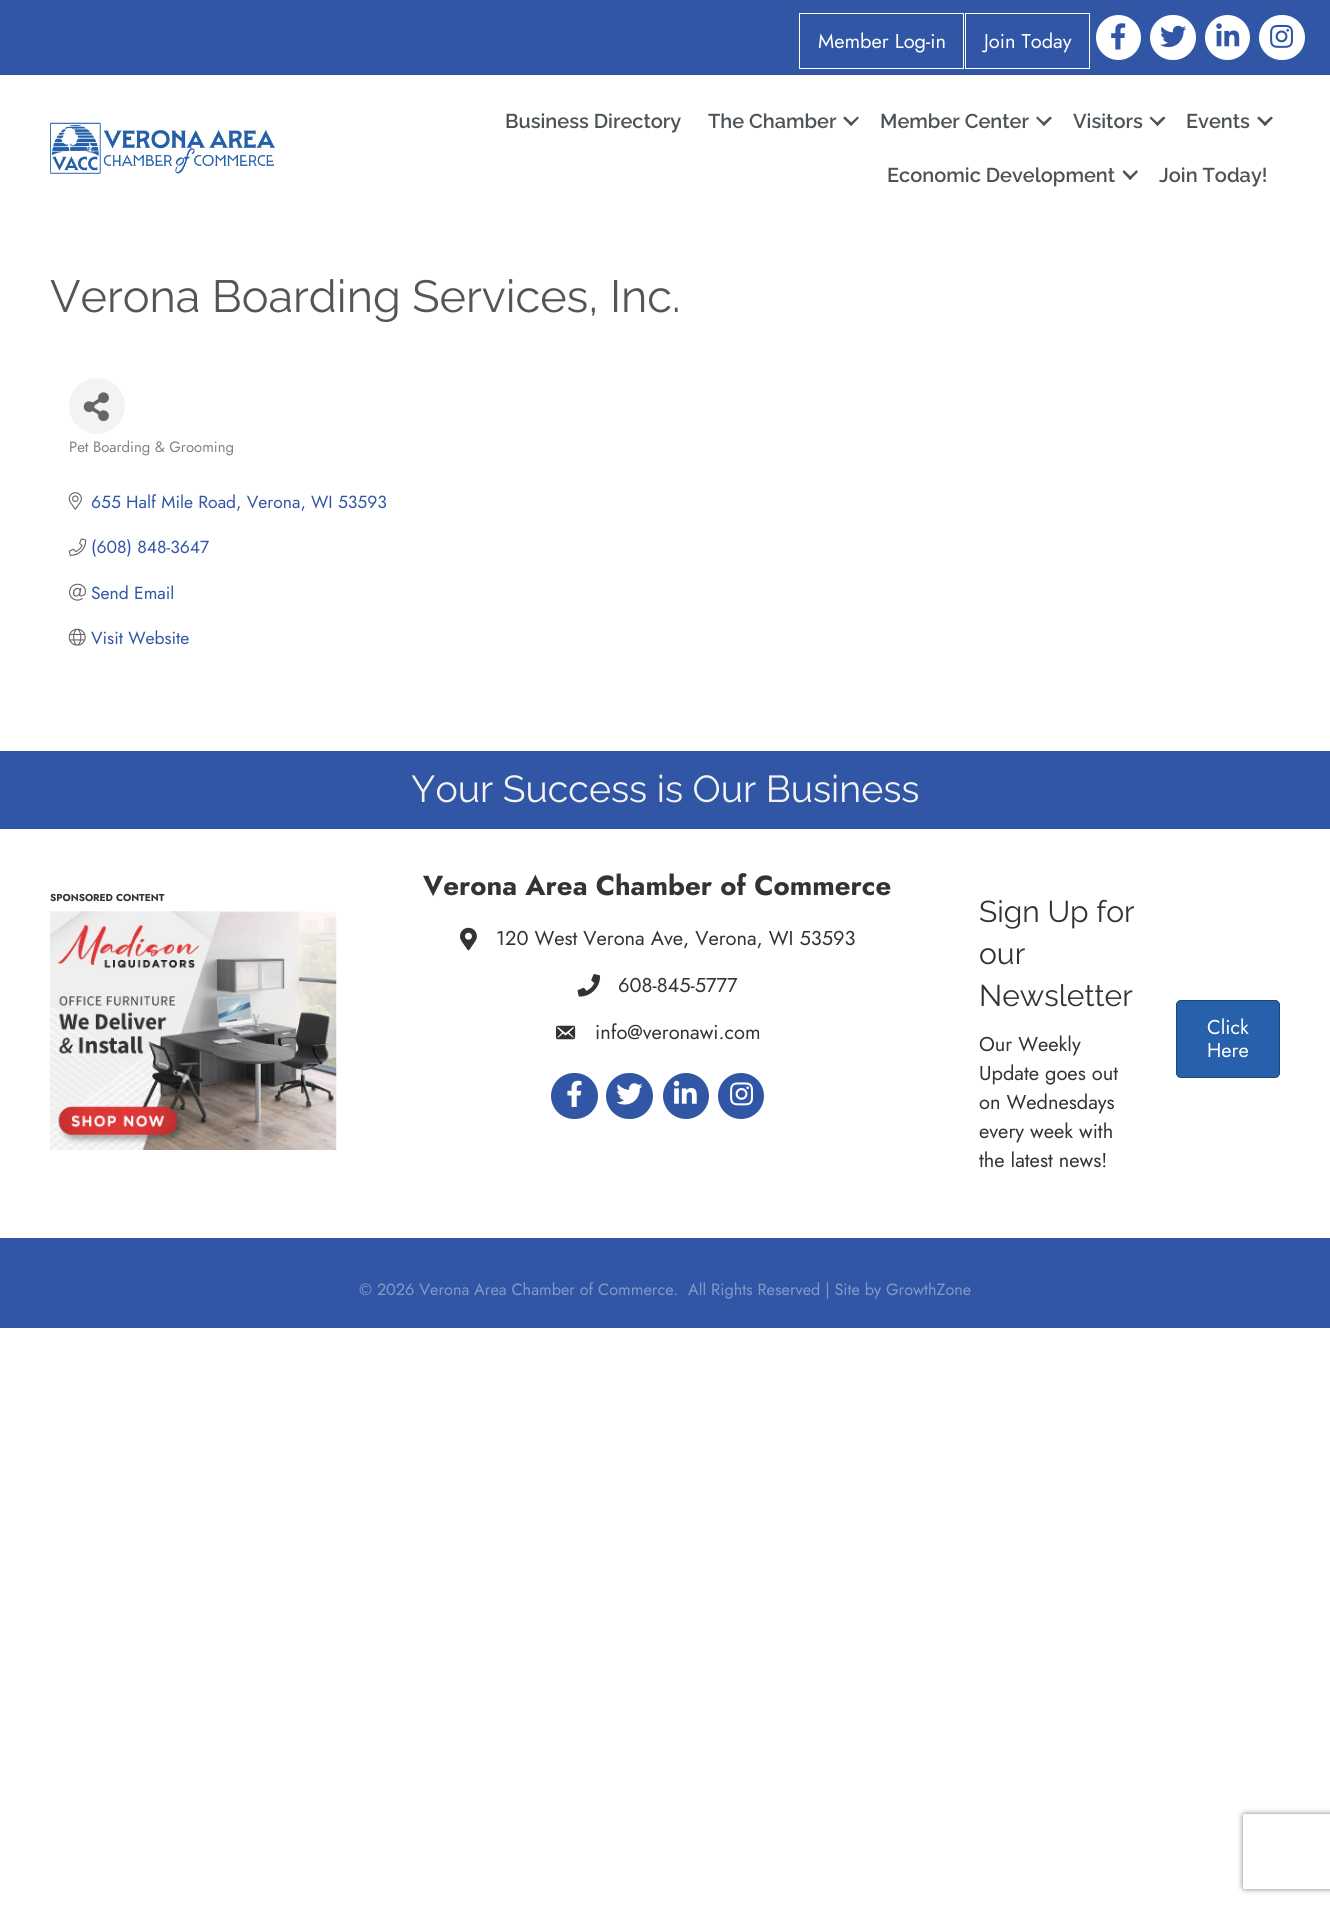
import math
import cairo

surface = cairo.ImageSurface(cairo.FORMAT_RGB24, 1330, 1906)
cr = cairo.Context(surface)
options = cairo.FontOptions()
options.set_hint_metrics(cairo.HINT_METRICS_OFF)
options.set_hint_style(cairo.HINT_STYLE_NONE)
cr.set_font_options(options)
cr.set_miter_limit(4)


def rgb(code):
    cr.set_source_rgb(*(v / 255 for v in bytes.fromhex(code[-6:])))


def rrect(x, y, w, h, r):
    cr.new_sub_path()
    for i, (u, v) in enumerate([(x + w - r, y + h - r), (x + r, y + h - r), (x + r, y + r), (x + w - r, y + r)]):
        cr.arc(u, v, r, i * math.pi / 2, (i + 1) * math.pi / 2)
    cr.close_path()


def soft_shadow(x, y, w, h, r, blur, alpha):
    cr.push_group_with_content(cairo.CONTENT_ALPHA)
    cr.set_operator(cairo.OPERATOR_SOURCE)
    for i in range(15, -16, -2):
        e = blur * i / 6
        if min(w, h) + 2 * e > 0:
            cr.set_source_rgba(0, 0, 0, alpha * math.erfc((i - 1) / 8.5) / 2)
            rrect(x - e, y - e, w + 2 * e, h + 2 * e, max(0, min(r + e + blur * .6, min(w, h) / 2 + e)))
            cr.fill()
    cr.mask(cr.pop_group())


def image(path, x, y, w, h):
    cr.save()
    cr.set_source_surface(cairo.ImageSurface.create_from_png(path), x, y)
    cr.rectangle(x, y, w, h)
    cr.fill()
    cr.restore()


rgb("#ffffff")
cr.paint()
rgb("#3156a5")
cr.rectangle(0, 0, 1330, 75)
cr.fill()
cr.rectangle(799.5, 13.5, 164, 55)
rgb("#ffffff")
cr.set_line_width(1)
cr.stroke()
cr.rectangle(965.5, 13.5, 124, 55)
cr.stroke()
cr.arc(1118.5, 37.5, 22.5, 0, 2 * math.pi)
cr.fill()
image("img/1.png", 1111, 23, 15, 27)
rrect(1150, 15, 46, 45, 22.5)
cr.fill()
image("img/2.png", 1160, 25, 27, 23)
cr.arc(1227.5, 37.5, 22.5, 0, 2 * math.pi)
cr.fill()
image("img/3.png", 1216, 23, 24, 24)
rrect(1259, 15, 46, 45, 22.5)
cr.fill()
image("img/4.png", 1270, 24, 23, 24)
image("img/5.png", 50, 122, 225, 52)
rgb("#4c5256")
cr.new_path()
cr.move_to(857.5, 116.5)
cr.line_to(859, 118)
cr.line_to(851, 126)
cr.line_to(849.5, 124)
cr.close_path()
cr.fill()
cr.new_path()
cr.move_to(845, 116.5)
cr.line_to(853, 124)
cr.line_to(851, 126)
cr.line_to(843, 118)
cr.close_path()
cr.fill()
cr.new_path()
cr.move_to(1050, 116.5)
cr.line_to(1052, 118)
cr.line_to(1044, 126)
cr.line_to(1042, 124)
cr.close_path()
cr.fill()
cr.new_path()
cr.move_to(1037.5, 116.5)
cr.line_to(1045.5, 124)
cr.line_to(1044, 126)
cr.line_to(1036, 118)
cr.close_path()
cr.fill()
cr.new_path()
cr.move_to(1163.5, 116.5)
cr.line_to(1165.5, 118)
cr.line_to(1157.5, 126)
cr.line_to(1155.5, 124)
cr.close_path()
cr.fill()
cr.new_path()
cr.move_to(1151, 116.5)
cr.line_to(1159, 124)
cr.line_to(1157.5, 126)
cr.line_to(1149.5, 118)
cr.close_path()
cr.fill()
cr.new_path()
cr.move_to(1271, 116.5)
cr.line_to(1273, 118)
cr.line_to(1265, 126)
cr.line_to(1263, 124)
cr.close_path()
cr.fill()
cr.new_path()
cr.move_to(1259, 116.5)
cr.line_to(1267, 124)
cr.line_to(1265, 126)
cr.line_to(1257, 118)
cr.close_path()
cr.fill()
cr.new_path()
cr.move_to(1136.5, 170)
cr.line_to(1138, 172)
cr.line_to(1130, 180)
cr.line_to(1128.5, 178)
cr.close_path()
cr.fill()
cr.new_path()
cr.move_to(1124, 170)
cr.line_to(1132, 178)
cr.line_to(1130, 180)
cr.line_to(1122.5, 172)
cr.close_path()
cr.fill()
rgb("#f3f3f3")
cr.arc(97, 406, 28, 0, 2 * math.pi)
cr.fill()
image("img/6.png", 83, 392, 26, 30)
image("img/7.png", 68, 492, 14, 18)
image("img/8.png", 68, 538, 19, 18)
image("img/9.png", 69, 583, 17, 18)
image("img/10.png", 68, 628, 18, 18)
rgb("#3156a5")
cr.rectangle(0, 751, 1330, 78)
cr.fill()
image("img/11.png", 50, 911, 287, 239)
image("img/12.png", 460, 927, 17, 24)
image("img/13.png", 577, 974, 24, 23)
image("img/14.png", 556, 1025, 20, 15)
rrect(551, 1073, 47, 46, 23)
cr.fill()
image("img/15.png", 567, 1080, 15, 27)
rrect(606, 1073, 47, 46, 23)
cr.fill()
image("img/16.png", 616, 1083, 27, 22)
cr.arc(686, 1096, 23, 0, 2 * math.pi)
cr.fill()
image("img/17.png", 673, 1080, 24, 24)
cr.arc(741, 1096, 23, 0, 2 * math.pi)
cr.fill()
image("img/18.png", 730, 1082, 23, 24)
rgb("#2761ab")
rrect(1176.5, 1000.5, 103, 77, 4.5)
cr.fill_preserve()
rgb("#1c4579")
cr.stroke()
rgb("#3156a5")
cr.rectangle(0, 1238, 1330, 90)
cr.fill()
cr.save()
cr.set_fill_rule(cairo.FILL_RULE_EVEN_ODD)
cr.new_path()
cr.move_to(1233, 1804)
cr.line_to(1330, 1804)
cr.line_to(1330, 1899)
cr.line_to(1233, 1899)
cr.close_path()
cr.move_to(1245.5, 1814)
cr.line_to(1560.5, 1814)
cr.curve_to(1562, 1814, 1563, 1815, 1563, 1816.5)
cr.line_to(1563, 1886.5)
cr.curve_to(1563, 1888, 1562, 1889, 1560.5, 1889)
cr.line_to(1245.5, 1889)
cr.curve_to(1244, 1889, 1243, 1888, 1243, 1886.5)
cr.line_to(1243, 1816.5)
cr.curve_to(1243, 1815, 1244, 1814, 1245.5, 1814)
cr.close_path()
cr.clip()
rgb("#808080")
soft_shadow(1243, 1814, 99, 75, 2.5, 3, 1)
cr.restore()
cr.select_font_face("Jost")
cr.set_font_size(20)
rgb("#ffffff")
cr.move_to(818, 48)
cr.show_text("Member Log-in")
cr.move_to(984, 48)
cr.show_text("Join Today")
cr.select_font_face("Raleway SemiBold")
rgb("#4c5256")
for x, y, s in [
    (505, 128, "Business Directory"),
    (708, 128, "The Chamber"),
    (880, 128, "Member Center"),
    (1073, 128, "Visitors"),
    (1186, 128, "Events"),
    (887, 182, "Economic Development"),
    (1159, 182, "Join Today!"),
]:
    cr.move_to(x, y)
    cr.show_text(s)
cr.select_font_face("Raleway")
cr.set_font_size(45)
rgb("#555555")
cr.move_to(50, 312)
cr.show_text("Verona Boarding Services, Inc.")
cr.select_font_face("Jost")
cr.set_font_size(14.9)
rgb("#828282")
cr.move_to(69, 452)
cr.show_text("Pet Boarding & Grooming")
cr.set_font_size(17.5)
rgb("#3156a5")
for x, y, s in [
    (91, 508, "655 Half Mile Road, Verona, WI 53593"),
    (91, 553, "(608) 848-3647"),
    (91, 599, "Send Email"),
    (91, 644, "Visit Website"),
]:
    cr.move_to(x, y)
    cr.show_text(s)
cr.select_font_face("Raleway")
cr.set_font_size(37.5)
rgb("#f3f3f3")
cr.move_to(411, 802)
cr.show_text("Your Success is Our Business")
cr.select_font_face("Jost", cairo.FONT_SLANT_NORMAL, cairo.FONT_WEIGHT_BOLD)
cr.set_font_size(10)
rgb("#333333")
cr.move_to(50, 901)
cr.show_text("SPONSORED CONTENT")
cr.set_font_size(27.5)
cr.move_to(423, 895)
cr.show_text("Verona Area Chamber of Commerce")
cr.select_font_face("Jost")
cr.set_font_size(20)
for x, y, s in [
    (496, 945, "120 West Verona Ave, Verona, WI 53593"),
    (618, 992, "608-845-5777"),
    (595, 1039, "info@veronawi.com"),
]:
    cr.move_to(x, y)
    cr.show_text(s)
cr.select_font_face("Raleway")
cr.set_font_size(30)
for x, y, s in [
    (979, 922, "Sign Up for"),
    (979, 964, "our"),
    (979, 1006, "Newsletter"),
]:
    cr.move_to(x, y)
    cr.show_text(s)
cr.select_font_face("Jost")
cr.set_font_size(20)
for x, y, s in [
    (979, 1051, "Our Weekly"),
    (979, 1080, "Update goes out"),
    (979, 1109, "on Wednesdays"),
    (979, 1138, "every week with"),
    (979, 1167, "the latest news!"),
]:
    cr.move_to(x, y)
    cr.show_text(s)
rgb("#ffffff")
cr.move_to(1207, 1034)
cr.show_text("Click")
cr.move_to(1207, 1057)
cr.show_text("Here")
cr.set_font_size(16.25)
rgb("#839ac9")
cr.move_to(359, 1295)
cr.show_text("© 2026 Verona Area Chamber of Commerce.")
cr.move_to(688, 1295)
cr.show_text("All Rights Reserved | Site by GrowthZone")
surface.write_to_png("page.png")
